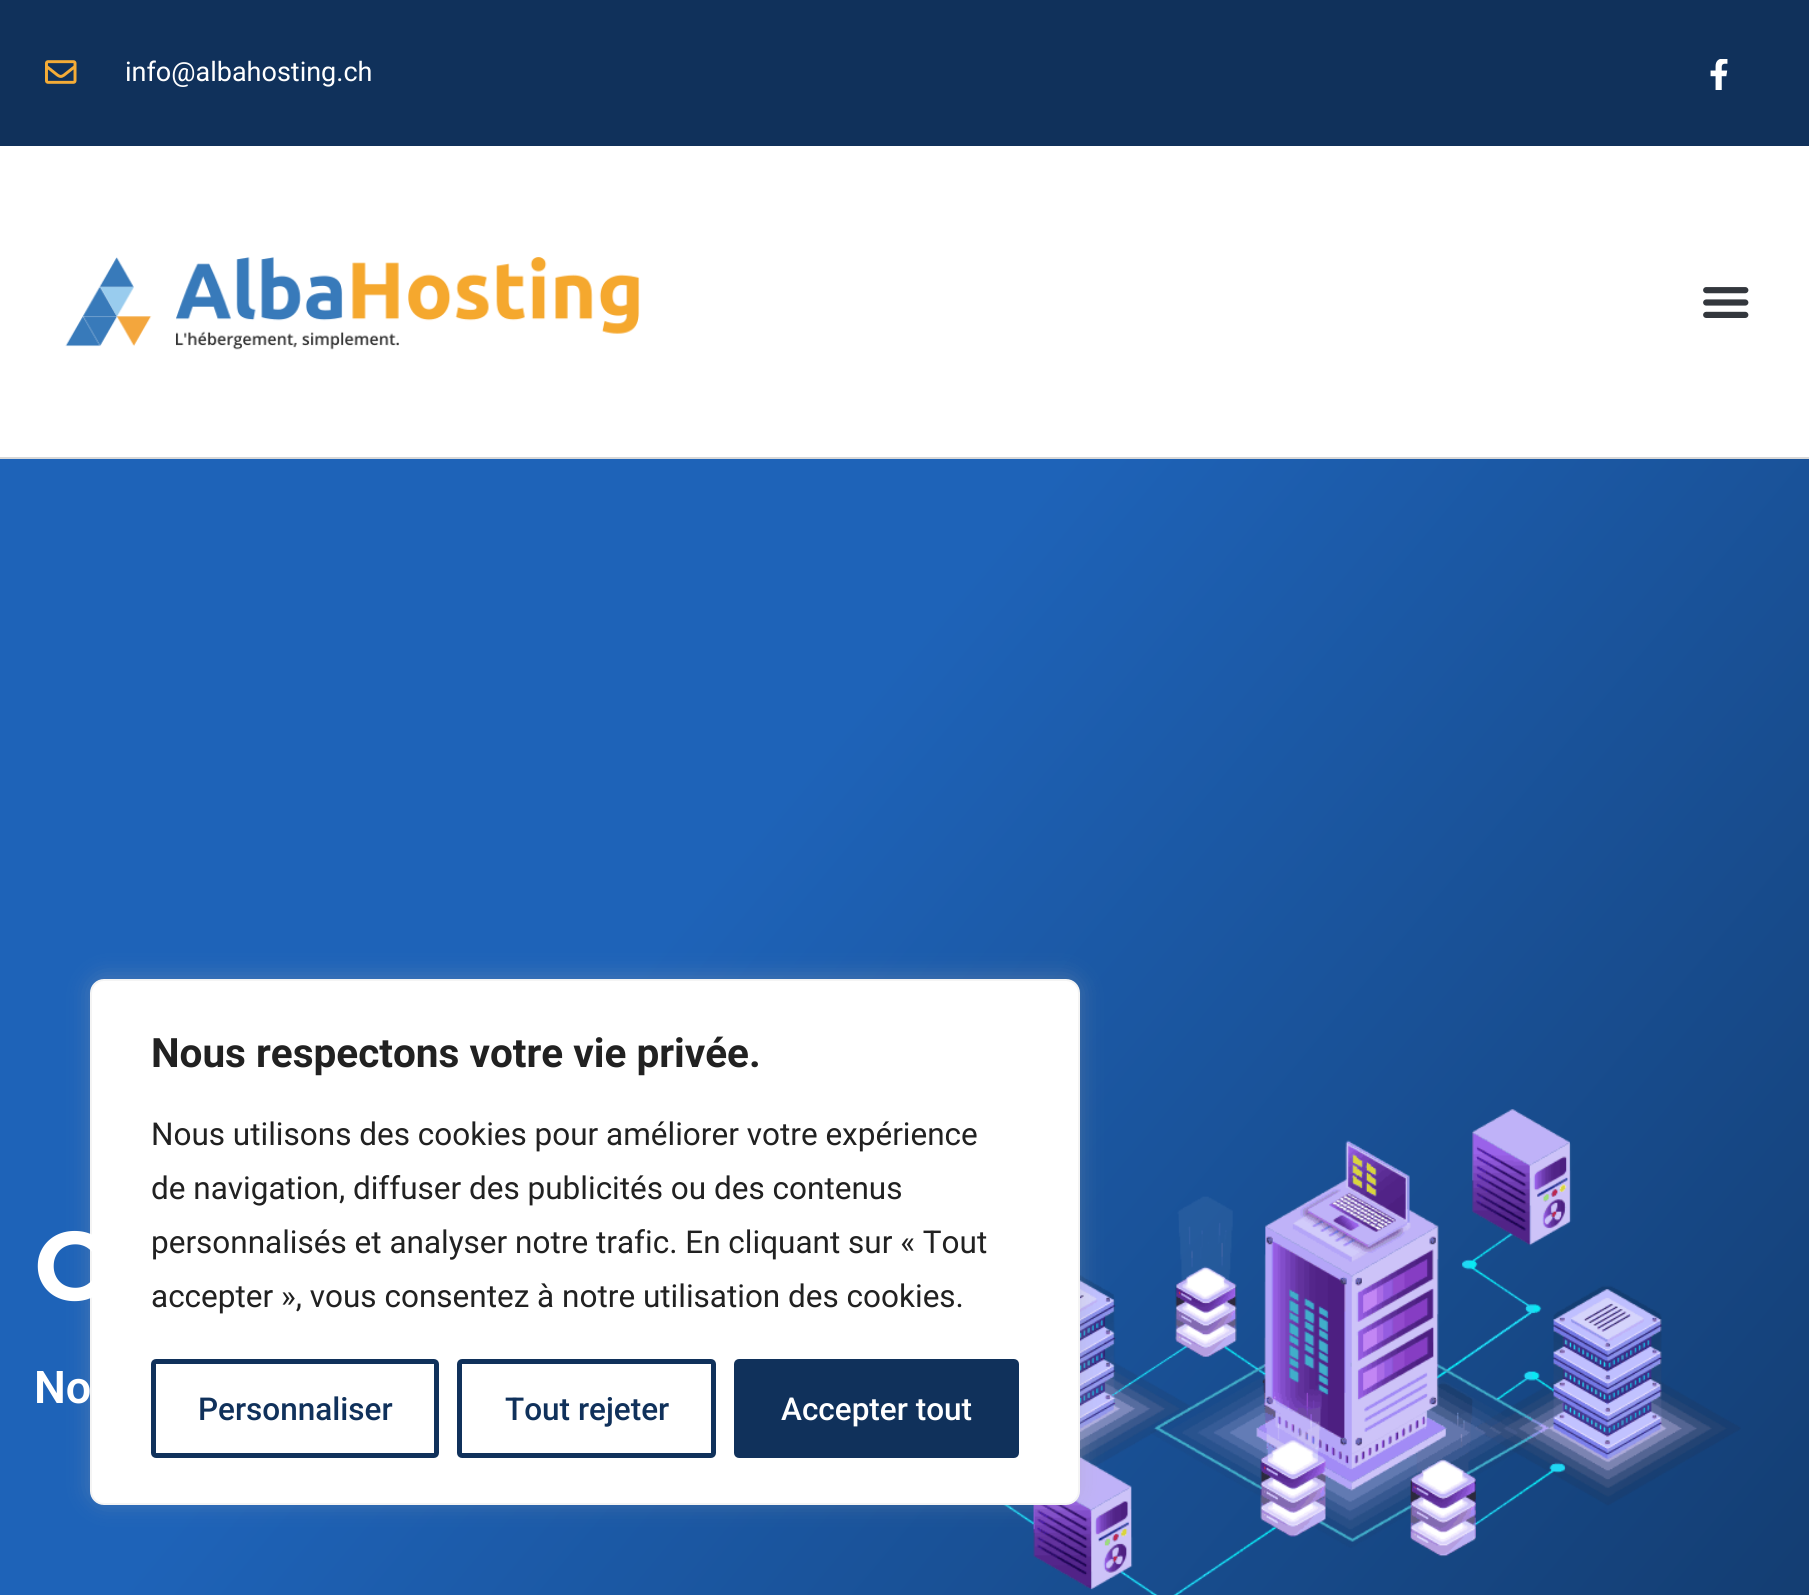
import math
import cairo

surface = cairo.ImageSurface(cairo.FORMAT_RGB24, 1809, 1595)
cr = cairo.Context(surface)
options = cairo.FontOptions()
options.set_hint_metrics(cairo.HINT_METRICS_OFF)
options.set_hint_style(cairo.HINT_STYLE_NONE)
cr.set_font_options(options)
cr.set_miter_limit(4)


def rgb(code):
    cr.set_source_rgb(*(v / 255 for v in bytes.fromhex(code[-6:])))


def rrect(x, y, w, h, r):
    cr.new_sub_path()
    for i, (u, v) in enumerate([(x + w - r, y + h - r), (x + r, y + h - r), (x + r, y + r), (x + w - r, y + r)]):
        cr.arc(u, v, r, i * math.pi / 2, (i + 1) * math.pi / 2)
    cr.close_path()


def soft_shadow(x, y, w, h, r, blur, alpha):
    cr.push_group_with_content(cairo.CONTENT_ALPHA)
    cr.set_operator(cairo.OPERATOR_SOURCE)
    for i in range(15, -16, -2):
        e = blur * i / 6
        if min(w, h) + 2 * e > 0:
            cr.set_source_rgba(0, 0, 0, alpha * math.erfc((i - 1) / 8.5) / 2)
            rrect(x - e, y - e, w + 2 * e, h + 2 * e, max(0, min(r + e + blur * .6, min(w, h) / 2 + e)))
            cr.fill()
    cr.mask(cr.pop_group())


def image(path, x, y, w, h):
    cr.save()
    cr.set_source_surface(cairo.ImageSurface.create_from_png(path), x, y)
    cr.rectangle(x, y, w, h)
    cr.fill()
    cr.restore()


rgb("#ffffff")
cr.paint()
rgb("#10315b")
cr.rectangle(0, 0, 1809, 146)
cr.fill()
image("img/1.png", 45, 60, 32, 24)
image("img/2.png", 1710, 59, 18, 31)
rgb("#d8d8d8")
cr.rectangle(0, 457, 1809, 2)
cr.fill()
image("img/3.png", 65, 257, 575, 93)
image("img/4.png", 1703, 287, 46, 31)
gradient = cairo.LinearGradient(-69, 542, 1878, 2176)
gradient.add_color_stop_rgba(0.32, 0.118, 0.388, 0.722, 1)
gradient.add_color_stop_rgba(1, 0.063, 0.192, 0.357, 1)
cr.set_source(gradient)
cr.rectangle(0, 459, 1809, 1136)
cr.fill()
image("img/5.png", 1003, 1109, 738, 486)
rgb("#acabab")
soft_shadow(90, 977, 990, 526, 14, 11, 0.3)
rgb("#ffffff")
rrect(91, 980, 988, 524, 13)
cr.fill_preserve()
rgb("#f4f4f4")
cr.stroke()
rrect(153.5, 1361.5, 283, 94, 2.5)
rgb("#10315b")
cr.set_line_width(5)
cr.stroke()
rrect(459.5, 1361.5, 254, 94, 2.5)
cr.stroke()
rrect(736.5, 1361.5, 280, 94, 2.5)
cr.fill_preserve()
cr.stroke()
cr.select_font_face("Roboto")
cr.set_font_size(27)
rgb("#ffffff")
cr.move_to(125, 81)
cr.show_text("info@albahosting.ch")
cr.select_font_face("Montserrat", cairo.FONT_SLANT_NORMAL, cairo.FONT_WEIGHT_BOLD)
cr.set_font_size(97)
cr.move_to(34, 1300)
cr.show_text("C")
cr.select_font_face("Roboto SemiBold")
cr.set_font_size(45)
cr.move_to(34, 1403)
cr.show_text("No")
cr.select_font_face("Roboto", cairo.FONT_SLANT_NORMAL, cairo.FONT_WEIGHT_BOLD)
cr.set_font_size(40.5)
rgb("#212121")
cr.move_to(151, 1067)
cr.show_text("Nous respectons votre vie privée.")
cr.select_font_face("Roboto")
cr.set_font_size(31.5)
for x, y, s in [
    (151, 1145, "Nous utilisons des cookies pour améliorer votre expérience"),
    (151, 1199, "de navigation, diffuser des publicités ou des contenus"),
    (151, 1253, "personnalisés et analyser notre trafic. En cliquant sur « Tout"),
    (151, 1307, "accepter », vous consentez à notre utilisation des cookies."),
]:
    cr.move_to(x, y)
    cr.show_text(s)
cr.select_font_face("Roboto Medium")
rgb("#10315b")
cr.move_to(198, 1420)
cr.show_text("Personnaliser")
cr.move_to(505, 1420)
cr.show_text("Tout rejeter")
rgb("#ffffff")
cr.move_to(781, 1420)
cr.show_text("Accepter tout")
surface.write_to_png("page.png")
